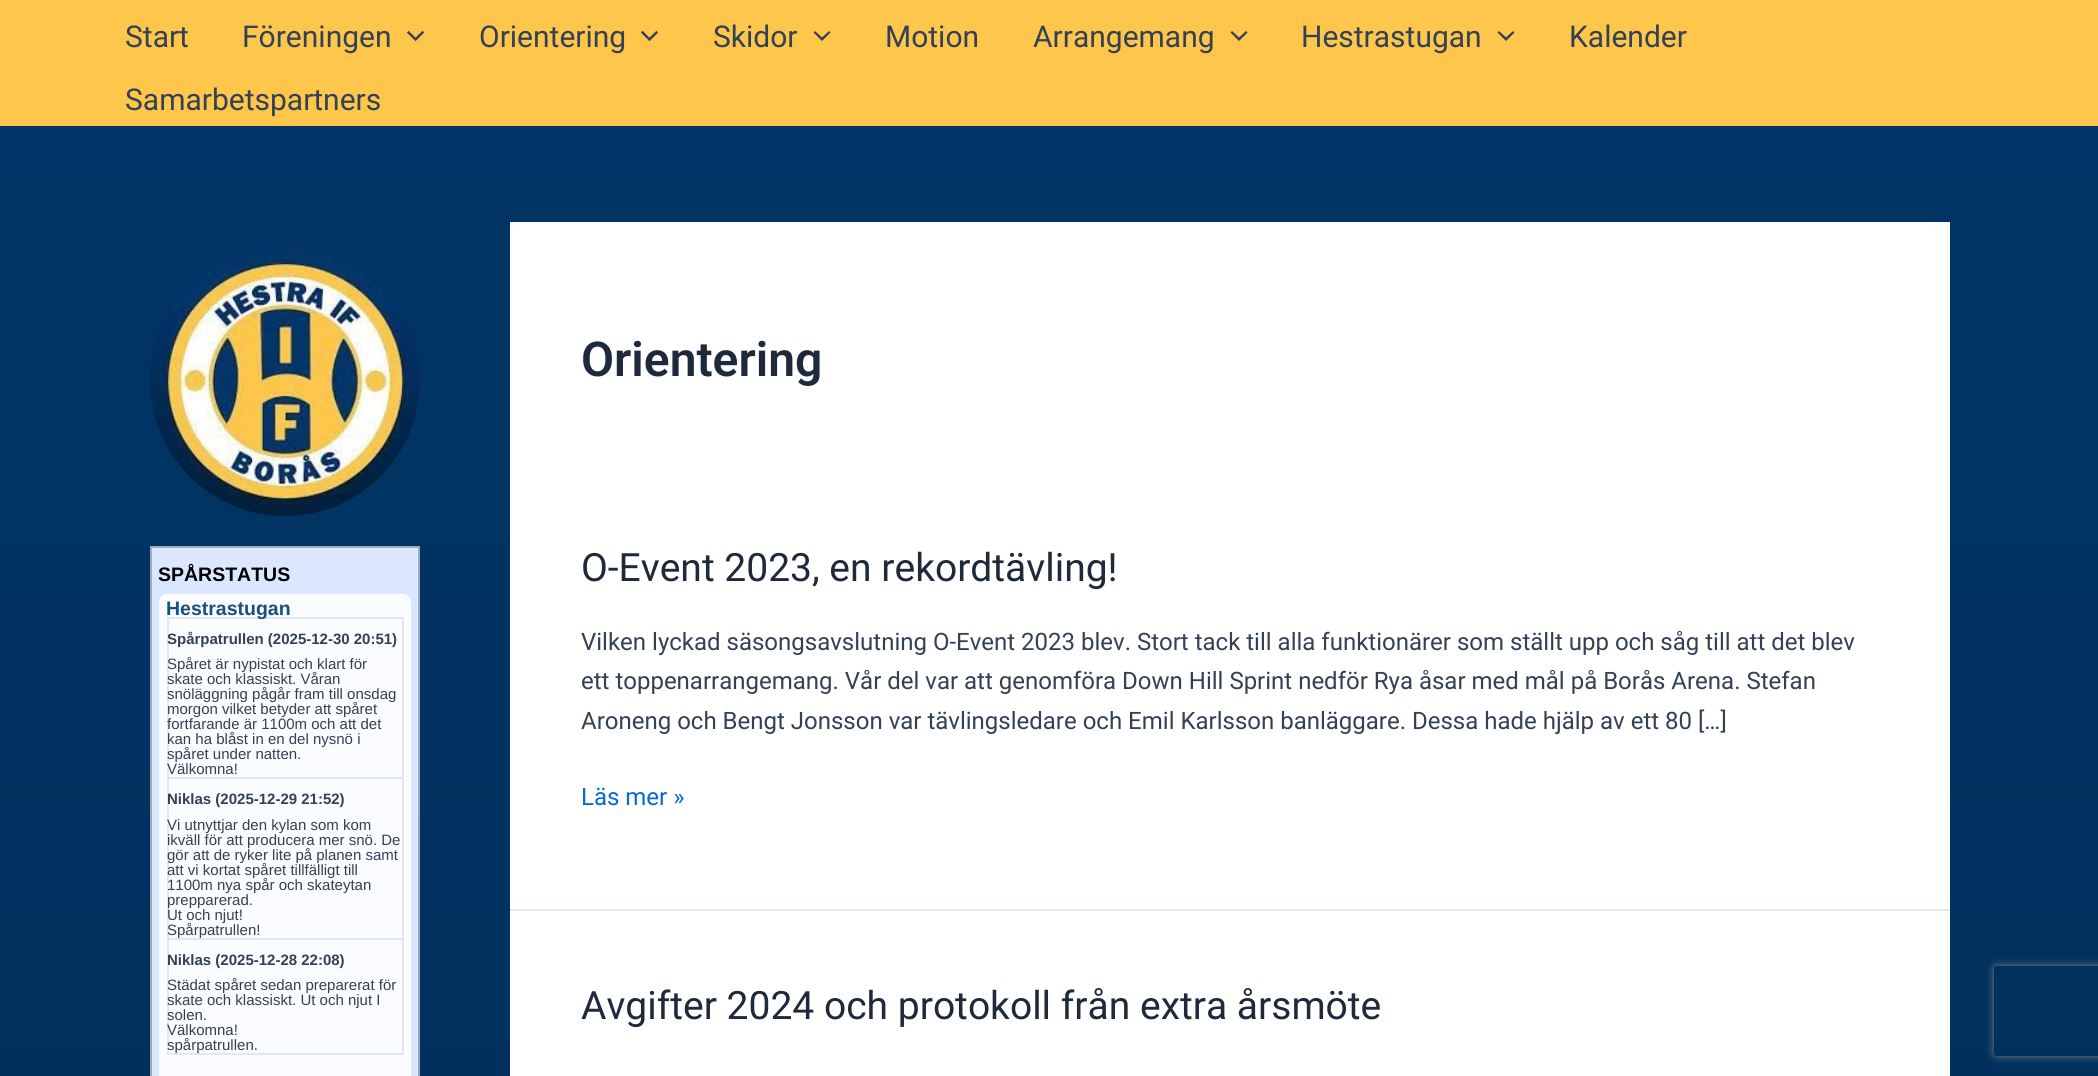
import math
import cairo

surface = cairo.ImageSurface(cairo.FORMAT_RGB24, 2098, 1076)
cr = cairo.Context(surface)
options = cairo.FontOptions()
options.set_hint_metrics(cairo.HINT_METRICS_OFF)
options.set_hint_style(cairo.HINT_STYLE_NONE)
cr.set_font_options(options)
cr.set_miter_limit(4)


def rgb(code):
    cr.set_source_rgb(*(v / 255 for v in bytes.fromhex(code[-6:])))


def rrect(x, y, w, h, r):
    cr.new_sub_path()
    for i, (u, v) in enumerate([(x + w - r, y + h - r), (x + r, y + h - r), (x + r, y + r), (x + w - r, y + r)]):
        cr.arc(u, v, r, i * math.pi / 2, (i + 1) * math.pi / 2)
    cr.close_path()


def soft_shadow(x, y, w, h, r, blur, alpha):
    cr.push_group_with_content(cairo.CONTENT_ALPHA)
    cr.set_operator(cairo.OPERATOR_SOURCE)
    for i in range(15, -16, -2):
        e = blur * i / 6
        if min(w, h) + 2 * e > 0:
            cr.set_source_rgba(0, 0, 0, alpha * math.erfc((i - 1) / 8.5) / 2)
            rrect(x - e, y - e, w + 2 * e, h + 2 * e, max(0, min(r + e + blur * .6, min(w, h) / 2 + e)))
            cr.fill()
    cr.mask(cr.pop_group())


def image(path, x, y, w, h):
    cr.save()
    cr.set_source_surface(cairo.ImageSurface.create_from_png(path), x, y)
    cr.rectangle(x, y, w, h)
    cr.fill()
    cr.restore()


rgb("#ffffff")
cr.paint()
gradient = cairo.LinearGradient(1049, 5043, 1049, 0)
gradient.add_color_stop_rgba(0, 0.008, 0.122, 0.239, 1)
gradient.add_color_stop_rgba(1, 0.004, 0.208, 0.404, 1)
cr.set_source(gradient)
cr.rectangle(0, 126, 2098, 950)
cr.fill()
rgb("#fec64b")
cr.rectangle(0, 0, 2098, 126)
cr.fill()
image("img/1.png", 407, 30, 18, 12)
image("img/1.png", 641, 30, 18, 12)
rgb("#334155")
cr.new_path()
cr.move_to(813.5, 32.5)
cr.line_to(822, 41)
cr.line_to(830.5, 32.5)
cr.line_to(829, 31)
cr.line_to(822, 37.5)
cr.line_to(815, 31)
cr.close_path()
cr.fill()
cr.new_path()
cr.move_to(1230.5, 32.5)
cr.line_to(1239, 41)
cr.line_to(1247.5, 32.5)
cr.line_to(1246, 31)
cr.line_to(1239, 37.5)
cr.line_to(1232, 31)
cr.close_path()
cr.fill()
cr.new_path()
cr.move_to(1497.5, 32.5)
cr.line_to(1506, 41)
cr.line_to(1514.5, 32.5)
cr.line_to(1513, 31)
cr.line_to(1506, 37.5)
cr.line_to(1499, 31)
cr.close_path()
cr.fill()
image("img/2.png", 150, 246, 270, 270)
rgb("#dbe7ff")
cr.rectangle(151, 547, 268, 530)
cr.fill_preserve()
rgb("#9babbd")
cr.stroke()
rgb("#fafcff")
rrect(159, 594, 252, 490, 8)
cr.fill()
for x, y, w, h, color in [
    (167, 617, 237, 2, "#e2e8f0"),
    (167, 617, 2, 438, "#e2e8f0"),
    (402, 617, 2, 438, "#e2e8f0"),
    (167, 777, 237, 2, "#e2e8f0"),
    (167, 938, 237, 2, "#e2e8f0"),
    (167, 1053, 237, 2, "#e2e8f0"),
    (510, 222, 1440, 687, "#ffffff"),
    (510, 909, 1440, 2, "#e2e8f0"),
    (510, 911, 1440, 165, "#ffffff"),
]:
    rgb(color)
    cr.rectangle(x, y, w, h)
    cr.fill()
cr.save()
cr.set_fill_rule(cairo.FILL_RULE_EVEN_ODD)
cr.new_path()
cr.move_to(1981, 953)
cr.line_to(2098, 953)
cr.line_to(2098, 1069)
cr.line_to(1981, 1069)
cr.close_path()
cr.move_to(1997, 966)
cr.line_to(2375, 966)
cr.curve_to(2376.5, 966, 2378, 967.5, 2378, 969)
cr.line_to(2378, 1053)
cr.curve_to(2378, 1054.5, 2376.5, 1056, 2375, 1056)
cr.line_to(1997, 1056)
cr.curve_to(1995.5, 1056, 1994, 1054.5, 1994, 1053)
cr.line_to(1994, 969)
cr.curve_to(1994, 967.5, 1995.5, 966, 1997, 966)
cr.close_path()
cr.clip()
rgb("#808080")
soft_shadow(1994, 966, 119, 90, 3, 4, 1)
cr.restore()
cr.select_font_face("Roboto")
cr.set_font_size(30)
rgb("#334155")
for x, y, s in [
    (125, 47, "Start"),
    (242, 47, "Föreningen"),
    (479, 47, "Orientering"),
    (713, 47, "Skidor"),
    (885, 47, "Motion"),
    (1033, 47, "Arrangemang"),
    (1301, 47, "Hestrastugan"),
    (1569, 47, "Kalender"),
    (125, 110, "Samarbetspartners"),
]:
    cr.move_to(x, y)
    cr.show_text(s)
cr.select_font_face("Liberation Sans", cairo.FONT_SLANT_NORMAL, cairo.FONT_WEIGHT_BOLD)
cr.set_font_size(19.5)
rgb("#000000")
cr.move_to(158, 581)
cr.show_text("SPÅRSTATUS")
rgb("#165182")
cr.move_to(166, 615)
cr.show_text("Hestrastugan")
cr.set_font_size(15)
rgb("#334155")
cr.move_to(167, 644)
cr.show_text("Spårpatrullen (2025-12-30 20:51)")
cr.select_font_face("Liberation Sans")
for x, y, s in [
    (167, 669, "Spåret är nypistat och klart för"),
    (167, 684, "skate och klassiskt. Våran"),
    (167, 699, "snöläggning pågår fram till onsdag"),
    (167, 714, "morgon vilket betyder att spåret"),
    (167, 729, "fortfarande är 1100m och att det"),
    (167, 744, "kan ha blåst in en del nysnö i"),
    (167, 759, "spåret under natten."),
    (167, 774, "Välkomna!"),
]:
    cr.move_to(x, y)
    cr.show_text(s)
cr.select_font_face("Liberation Sans", cairo.FONT_SLANT_NORMAL, cairo.FONT_WEIGHT_BOLD)
cr.move_to(167, 804)
cr.show_text("Niklas (2025-12-29 21:52)")
cr.select_font_face("Liberation Sans")
for x, y, s in [
    (167, 830, "Vi utnyttjar den kylan som kom"),
    (167, 845, "ikväll för att producera mer snö. De"),
    (167, 860, "gör att de ryker lite på planen samt"),
    (167, 875, "att vi kortat spåret tillfälligt till"),
    (167, 890, "1100m nya spår och skateytan"),
    (167, 905, "prepparerad."),
    (167, 920, "Ut och njut!"),
    (167, 935, "Spårpatrullen!"),
]:
    cr.move_to(x, y)
    cr.show_text(s)
cr.select_font_face("Liberation Sans", cairo.FONT_SLANT_NORMAL, cairo.FONT_WEIGHT_BOLD)
cr.move_to(167, 965)
cr.show_text("Niklas (2025-12-28 22:08)")
cr.select_font_face("Liberation Sans")
for x, y, s in [
    (167, 990, "Städat spåret sedan preparerat för"),
    (167, 1005, "skate och klassiskt. Ut och njut I"),
    (167, 1020, "solen."),
    (167, 1035, "Välkomna!"),
    (167, 1050, "spårpatrullen."),
]:
    cr.move_to(x, y)
    cr.show_text(s)
cr.select_font_face("Roboto SemiBold")
cr.set_font_size(48)
rgb("#1e293b")
cr.move_to(581, 376)
cr.show_text("Orientering")
cr.select_font_face("Roboto")
cr.set_font_size(39)
cr.move_to(581, 581)
cr.show_text("O-Event 2023, en rekordtävling!")
cr.set_font_size(24)
rgb("#334155")
for x, y, s in [
    (581, 650, "Vilken lyckad säsongsavslutning O-Event 2023 blev. Stort tack till alla funktionärer som ställt upp och såg till att det blev"),
    (581, 689, "ett toppenarrangemang. Vår del var att genomföra Down Hill Sprint nedför Rya åsar med mål på Borås Arena. Stefan"),
    (581, 729, "Aroneng och Bengt Jonsson var tävlingsledare och Emil Karlsson banläggare. Dessa hade hjälp av ett 80 […]"),
]:
    cr.move_to(x, y)
    cr.show_text(s)
rgb("#046bd2")
cr.move_to(581, 805)
cr.show_text("Läs mer »")
cr.set_font_size(39)
rgb("#1e293b")
cr.move_to(581, 1019)
cr.show_text("Avgifter 2024 och protokoll från extra årsmöte")
surface.write_to_png("page.png")
